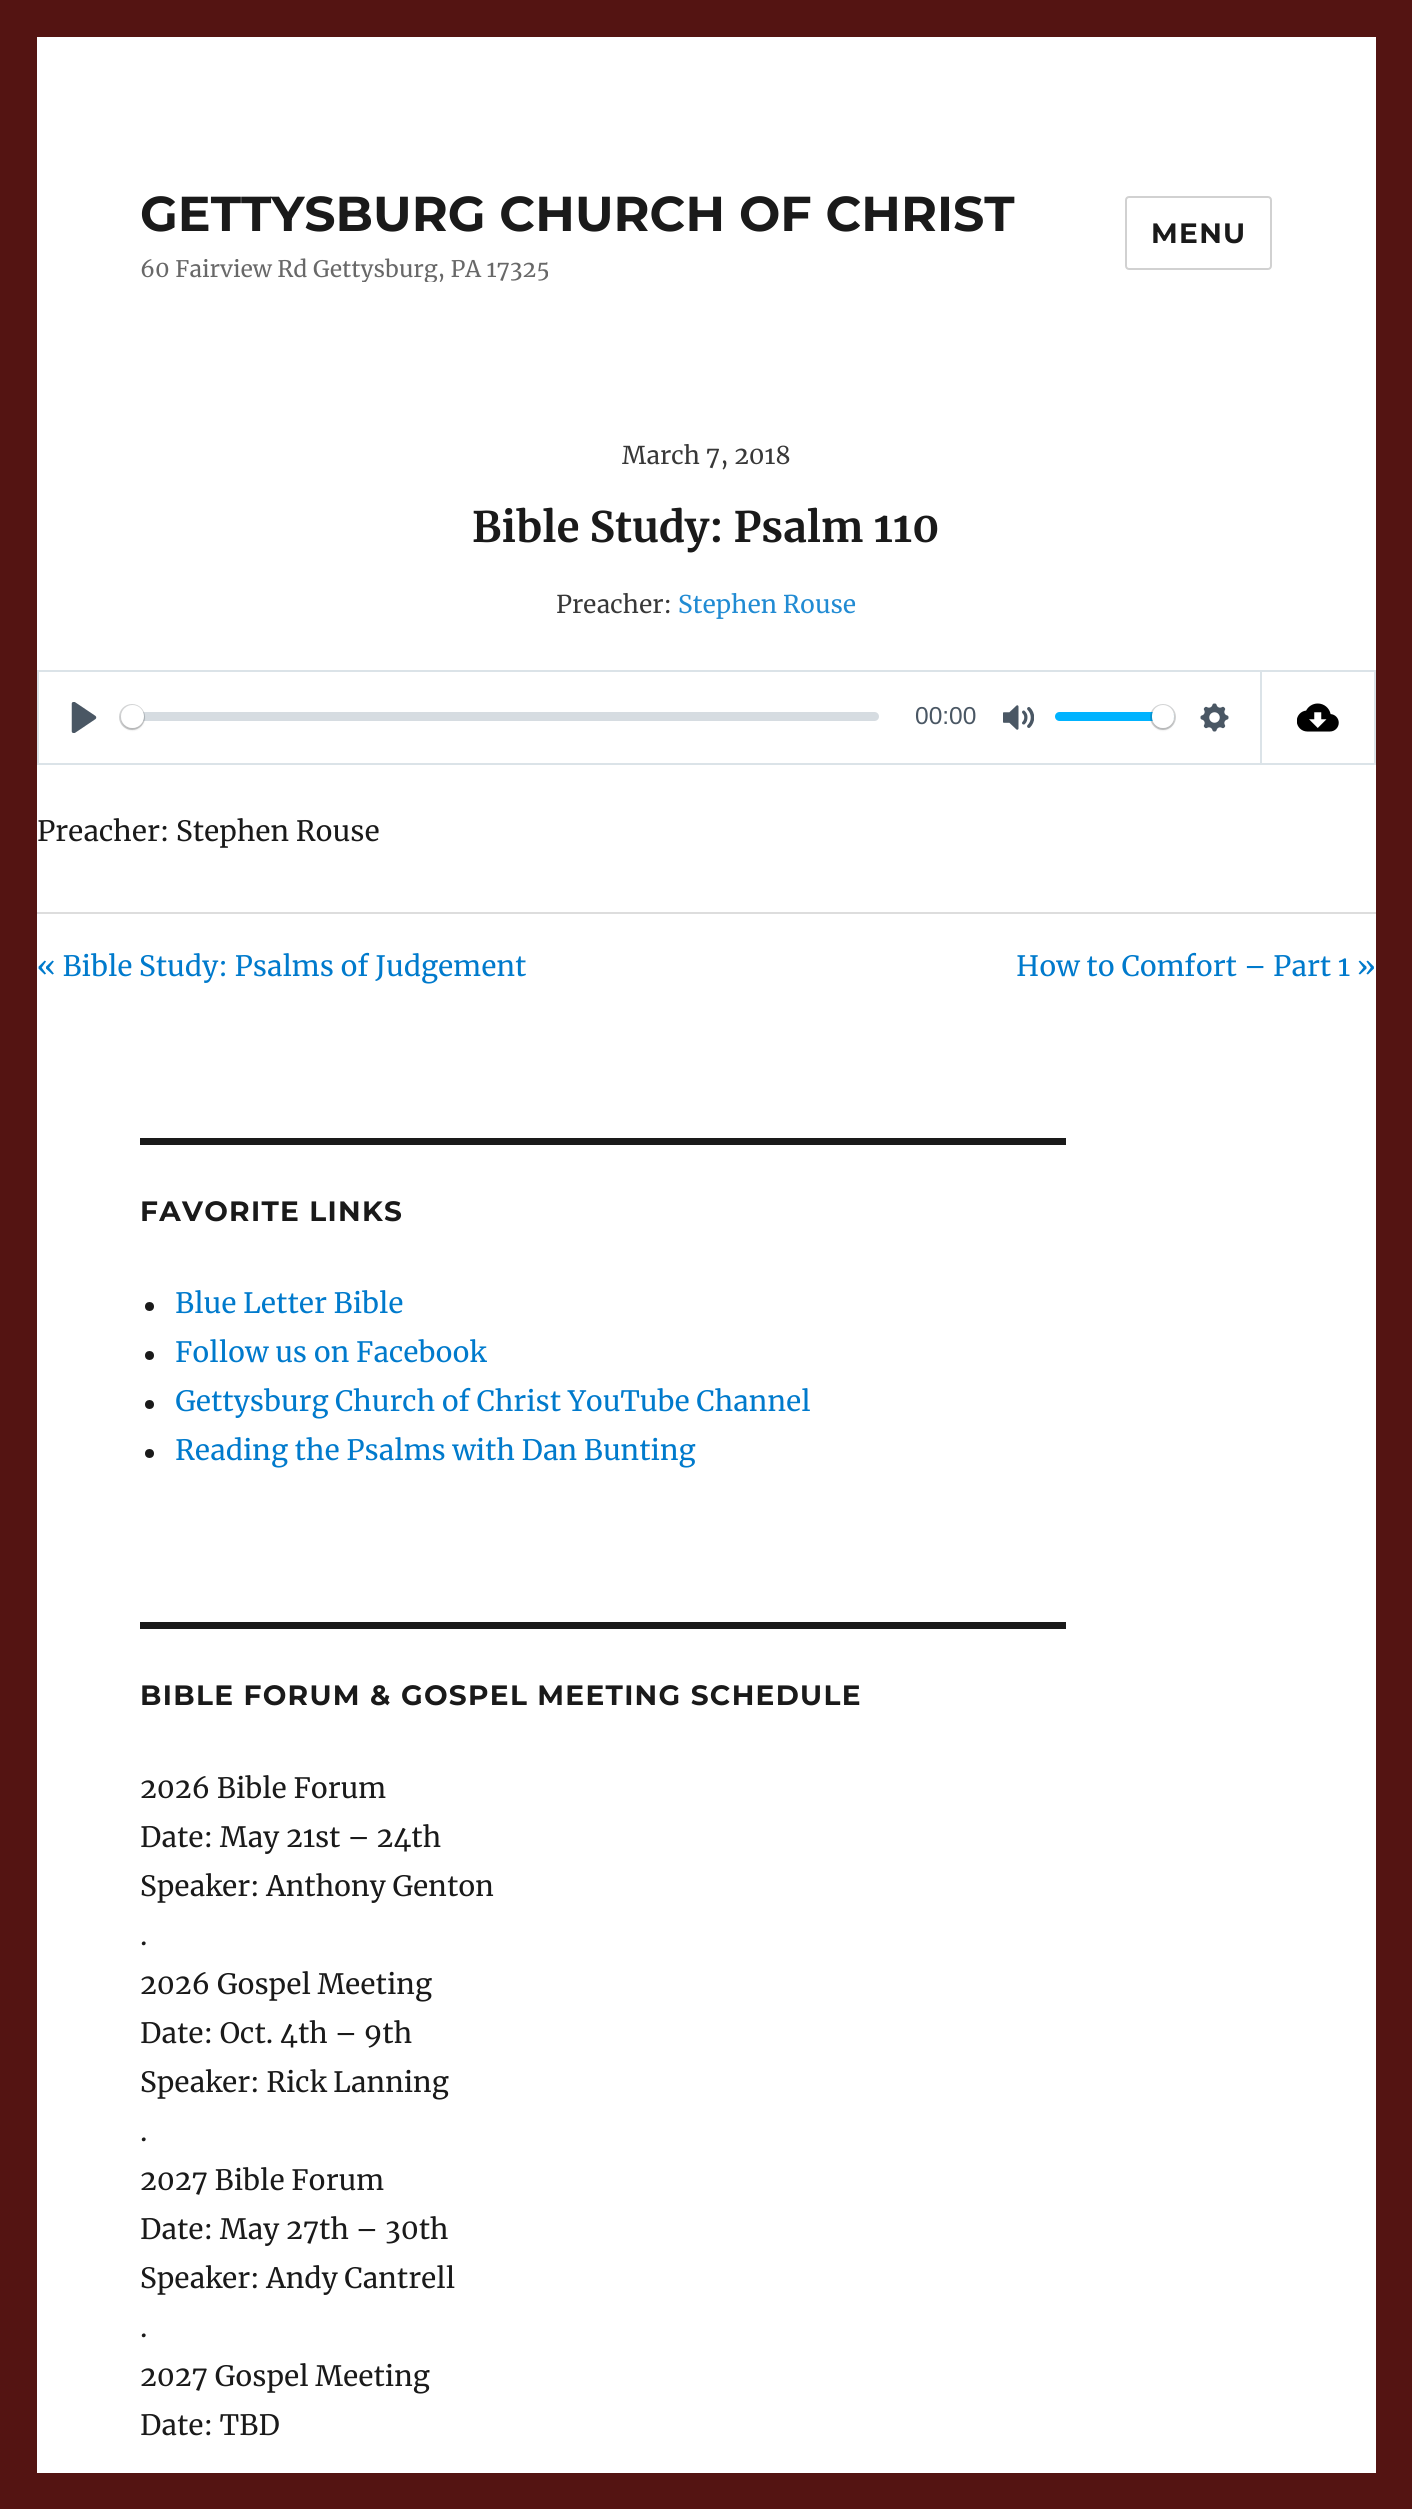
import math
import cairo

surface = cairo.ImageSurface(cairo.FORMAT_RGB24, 1412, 2509)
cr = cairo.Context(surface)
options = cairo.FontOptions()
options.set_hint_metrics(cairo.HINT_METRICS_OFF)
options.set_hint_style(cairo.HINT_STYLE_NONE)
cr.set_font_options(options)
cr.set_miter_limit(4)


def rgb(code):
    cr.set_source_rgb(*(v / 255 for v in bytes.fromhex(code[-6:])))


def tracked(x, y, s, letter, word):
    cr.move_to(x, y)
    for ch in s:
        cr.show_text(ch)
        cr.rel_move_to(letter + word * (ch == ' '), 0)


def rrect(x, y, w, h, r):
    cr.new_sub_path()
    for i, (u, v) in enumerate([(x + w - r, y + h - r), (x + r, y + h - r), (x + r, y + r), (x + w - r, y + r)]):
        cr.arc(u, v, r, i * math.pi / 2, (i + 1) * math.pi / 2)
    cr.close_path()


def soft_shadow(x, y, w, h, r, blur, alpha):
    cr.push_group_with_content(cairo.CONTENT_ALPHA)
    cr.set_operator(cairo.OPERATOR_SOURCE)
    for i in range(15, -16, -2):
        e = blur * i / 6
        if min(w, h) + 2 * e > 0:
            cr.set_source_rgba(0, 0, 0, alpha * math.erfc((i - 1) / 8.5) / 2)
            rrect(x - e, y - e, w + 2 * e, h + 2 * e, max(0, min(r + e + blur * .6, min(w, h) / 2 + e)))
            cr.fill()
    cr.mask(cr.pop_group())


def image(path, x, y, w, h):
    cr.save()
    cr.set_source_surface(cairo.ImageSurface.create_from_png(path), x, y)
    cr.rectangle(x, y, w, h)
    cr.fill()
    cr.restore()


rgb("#541412")
cr.paint()
rgb("#ffffff")
cr.rectangle(37, 37, 1339, 2436)
cr.fill()
rrect(1126, 197, 145, 72, 3)
rgb("#d1d1d1")
cr.stroke()
cr.rectangle(38, 671, 1223, 93)
rgb("#dbe3e8")
cr.stroke()
image("img/1.png", 71, 702, 26, 31)
cr.set_source_rgba(0.757, 0.788, 0.82, 0.66)
rrect(121, 712, 758, 9, 4.5)
cr.fill()
cr.arc(132, 717, 12, 0, 2 * math.pi)
cr.set_source_rgba(0.137, 0.161, 0.184, 0.2)
cr.stroke()
rgb("#000000")
soft_shadow(121, 707, 23, 23, 11.5, 1, 0.15)
rgb("#ffffff")
cr.arc(132.5, 716.5, 11.5, 0, 2 * math.pi)
cr.fill()
image("img/2.png", 1003, 705, 31, 25)
rgb("#00b3ff")
rrect(1055, 712, 119, 9, 4.5)
cr.fill()
cr.arc(1163, 717, 12, 0, 2 * math.pi)
cr.set_source_rgba(0.137, 0.161, 0.184, 0.2)
cr.stroke()
rgb("#000000")
soft_shadow(1152, 707, 22, 23, 11, 1, 0.15)
rgb("#ffffff")
rrect(1152, 705, 22, 23, 11)
cr.fill()
image("img/3.png", 1200, 703, 29, 29)
for x, y, w, h, color in [
    (1262, 670, 114, 2, "#dbe3e8"),
    (1374, 670, 2, 95, "#dbe3e8"),
    (1262, 763, 114, 2, "#dbe3e8"),
]:
    rgb(color)
    cr.rectangle(x, y, w, h)
    cr.fill()
image("img/4.png", 1297, 703, 42, 29)
rgb("#dddddd")
cr.rectangle(37, 912, 1339, 2)
cr.fill()
rgb("#1a1a1a")
cr.rectangle(140, 1138, 926, 7)
cr.fill()
cr.arc(149.5, 1306.5, 4.5, 0, 2 * math.pi)
cr.fill()
cr.arc(149.5, 1355.5, 4.5, 0, 2 * math.pi)
cr.fill()
cr.arc(149.5, 1404.5, 4.5, 0, 2 * math.pi)
cr.fill()
cr.arc(149.5, 1453.5, 4.5, 0, 2 * math.pi)
cr.fill()
cr.rectangle(140, 1622, 926, 7)
cr.fill()
cr.select_font_face("Montserrat Thin")
cr.set_font_size(49)
cr.move_to(140, 231)
cr.show_text("GETTYSBURG CHURCH OF CHRIST")
cr.save()
cr.rectangle(140, 184, 875, 98)
cr.clip()
cr.select_font_face("Merriweather")
cr.set_font_size(22.75)
rgb("#686868")
cr.move_to(140, 277)
cr.show_text("60 Fairview Rd Gettysburg, PA 17325")
cr.restore()
cr.set_font_size(28)
tracked(1151, 243, "MENU", 1.3, 0)
cr.select_font_face("Merriweather")
cr.set_font_size(24.5)
rgb("#383838")
cr.move_to(622, 464)
cr.show_text("March 7, 2018")
cr.select_font_face("Merriweather", cairo.FONT_SLANT_NORMAL, cairo.FONT_WEIGHT_BOLD)
cr.set_font_size(42)
rgb("#1a1a1a")
cr.move_to(472, 542)
cr.show_text("Bible Study: Psalm 110")
cr.select_font_face("Merriweather")
cr.set_font_size(24.5)
rgb("#383838")
cr.move_to(556, 613)
cr.show_text("Preacher:")
rgb("#218bd3")
cr.move_to(678, 613)
cr.show_text("Stephen Rouse")
cr.select_font_face("Liberation Sans")
rgb("#4a5764")
cr.move_to(915, 724)
cr.show_text("00:00")
cr.select_font_face("Merriweather")
cr.set_font_size(28)
rgb("#1a1a1a")
cr.move_to(37, 841)
cr.show_text("Preacher: Stephen Rouse")
rgb("#007acc")
cr.move_to(37, 976)
cr.show_text("« Bible Study: Psalms of Judgement")
cr.move_to(1016, 976)
cr.show_text("How to Comfort – Part 1 »")
cr.select_font_face("Montserrat Thin")
rgb("#1a1a1a")
tracked(140, 1221, "FAVORITE LINKS", 1.3, 0)
cr.select_font_face("Merriweather")
rgb("#007acc")
for x, y, s in [
    (175, 1313, "Blue Letter Bible"),
    (175, 1362, "Follow us on Facebook"),
    (175, 1411, "Gettysburg Church of Christ YouTube Channel"),
    (175, 1460, "Reading the Psalms with Dan Bunting"),
]:
    cr.move_to(x, y)
    cr.show_text(s)
cr.select_font_face("Montserrat Thin")
rgb("#1a1a1a")
tracked(140, 1705, "BIBLE FORUM & GOSPEL MEETING SCHEDULE", 1.3, 0)
cr.select_font_face("Merriweather")
for x, y, s in [
    (140, 1798, "2026 Bible Forum"),
    (140, 1847, "Date: May 21st – 24th"),
    (140, 1896, "Speaker: Anthony Genton"),
    (140, 1945, "."),
    (140, 1994, "2026 Gospel Meeting"),
    (140, 2043, "Date: Oct. 4th – 9th"),
    (140, 2092, "Speaker: Rick Lanning"),
    (140, 2141, "."),
    (140, 2190, "2027 Bible Forum"),
    (140, 2239, "Date: May 27th – 30th"),
    (140, 2288, "Speaker: Andy Cantrell"),
    (140, 2337, "."),
    (140, 2386, "2027 Gospel Meeting"),
    (140, 2435, "Date: TBD"),
]:
    cr.move_to(x, y)
    cr.show_text(s)
surface.write_to_png("page.png")
